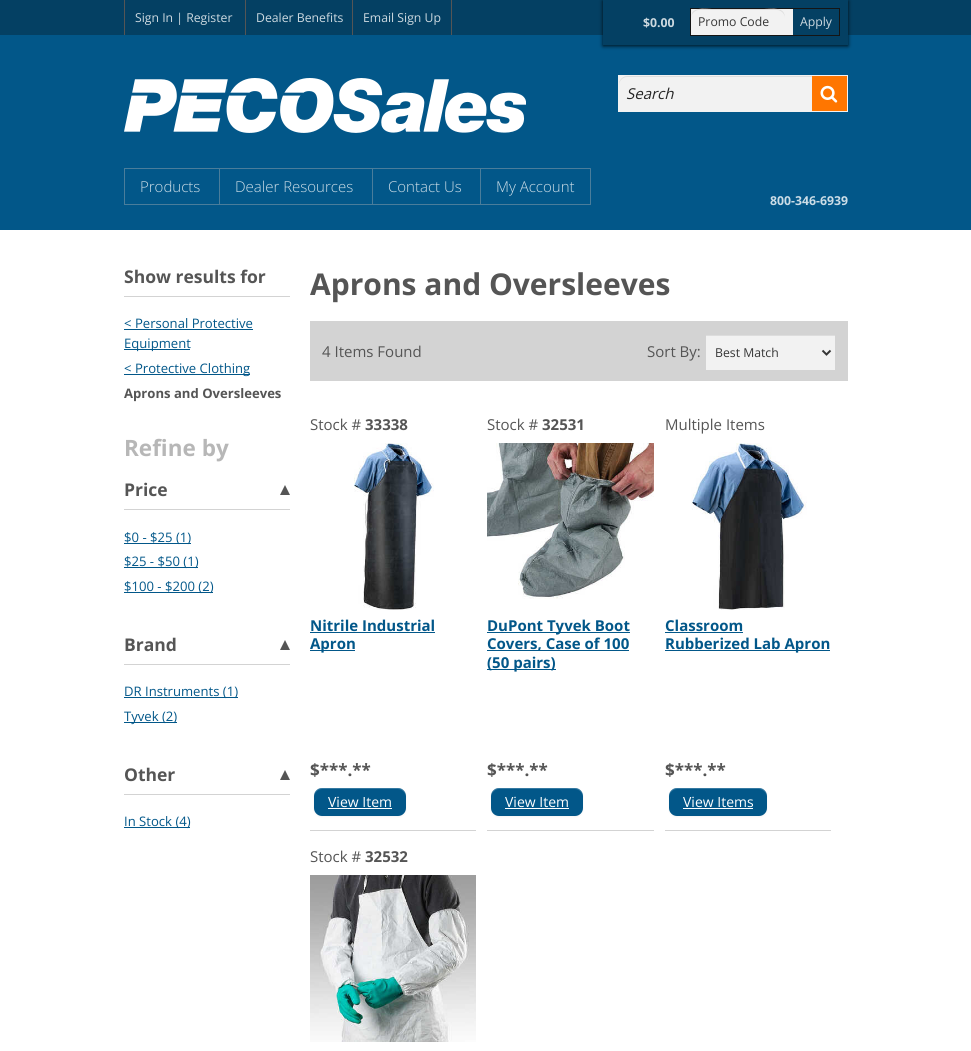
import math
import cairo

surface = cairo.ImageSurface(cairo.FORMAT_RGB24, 971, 1051)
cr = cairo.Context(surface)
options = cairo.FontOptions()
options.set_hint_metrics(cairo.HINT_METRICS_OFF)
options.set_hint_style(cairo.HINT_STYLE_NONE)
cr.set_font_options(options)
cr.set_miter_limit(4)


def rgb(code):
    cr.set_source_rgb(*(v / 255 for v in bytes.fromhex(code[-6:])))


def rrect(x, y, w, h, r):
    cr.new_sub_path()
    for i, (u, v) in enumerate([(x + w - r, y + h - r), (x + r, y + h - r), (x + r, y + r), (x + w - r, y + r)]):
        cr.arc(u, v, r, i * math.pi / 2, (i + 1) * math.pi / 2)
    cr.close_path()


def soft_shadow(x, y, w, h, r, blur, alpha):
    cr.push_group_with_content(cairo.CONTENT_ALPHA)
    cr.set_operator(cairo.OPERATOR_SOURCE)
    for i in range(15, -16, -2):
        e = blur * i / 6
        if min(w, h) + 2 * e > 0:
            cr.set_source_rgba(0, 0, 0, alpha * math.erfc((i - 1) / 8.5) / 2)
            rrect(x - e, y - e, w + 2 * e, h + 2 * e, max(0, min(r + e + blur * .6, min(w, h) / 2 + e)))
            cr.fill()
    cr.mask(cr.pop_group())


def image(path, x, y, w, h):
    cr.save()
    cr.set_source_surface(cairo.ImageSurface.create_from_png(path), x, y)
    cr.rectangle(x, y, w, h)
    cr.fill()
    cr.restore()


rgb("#ffffff")
cr.paint()
for x, y, w, h, color in [
    (0, 35, 971, 195, "#025789"),
    (0, 0, 971, 35, "#044063"),
    (451, 0, 1, 35, "#555555"),
    (124, 0, 1, 35, "#555555"),
    (245, 0, 1, 35, "#555555"),
    (352, 0, 1, 35, "#555555"),
]:
    rgb(color)
    cr.rectangle(x, y, w, h)
    cr.fill()
rgb("#000000")
soft_shadow(603, 1, 245, 45, 0, 2, 0.83)
rgb("#044063")
cr.rectangle(603, 0, 245, 45)
cr.fill()
rgb("#f2f2f2")
cr.rectangle(691, 9, 102, 26)
cr.fill()
cr.rectangle(690.5, 8.5, 149, 27)
rgb("#151515")
cr.set_line_width(1)
cr.stroke()
rgb("#dddddd")
cr.new_path()
cr.move_to(699, 10)
cr.line_to(777, 10)
cr.curve_to(781, 10, 785, 14, 785, 18)
cr.curve_to(785, 6, 772, 9, 764, 9)
cr.line_to(712, 9)
cr.curve_to(704, 9, 691, 6, 691, 18)
cr.curve_to(691, 14, 695, 10, 699, 10)
cr.close_path()
cr.fill()
image("img/1.png", 124, 78, 402, 55)
rgb("#f2f2f2")
cr.rectangle(618, 75, 230, 37)
cr.fill()
rgb("#dddddd")
cr.new_path()
cr.move_to(627, 77)
cr.line_to(839, 77)
cr.curve_to(843, 77, 847, 81, 847, 85)
cr.line_to(847, 84)
cr.curve_to(847, 80, 843, 76, 839, 76)
cr.line_to(627, 76)
cr.curve_to(623, 76, 619, 80, 619, 84)
cr.line_to(619, 85)
cr.curve_to(619, 81, 623, 77, 627, 77)
cr.close_path()
cr.fill()
rgb("#ff7600")
cr.rectangle(812, 76, 35, 35)
cr.fill()
image("img/2.png", 820, 85, 18, 18)
rgb("#4a7d9b")
cr.new_path()
cr.move_to(124, 168)
cr.line_to(591, 168)
cr.line_to(590, 169)
cr.line_to(124, 169)
cr.close_path()
cr.fill()
cr.set_source_rgba(0.718, 0.718, 0.718, 0.4)
cr.new_path()
cr.move_to(591, 168)
cr.line_to(591, 205)
cr.line_to(590, 204)
cr.line_to(590, 169)
cr.close_path()
cr.fill()
cr.new_path()
cr.move_to(591, 205)
cr.line_to(124, 205)
cr.line_to(124, 204)
cr.line_to(590, 204)
cr.close_path()
cr.fill()
for x, y, w, h, color in [
    (124, 169, 1, 35, "#4a7d9b"),
    (219, 169, 1, 35, "#4a7d9b"),
    (372, 169, 1, 35, "#4a7d9b"),
    (480, 169, 1, 35, "#4a7d9b"),
    (124, 296, 166, 1, "#d3d3d3"),
    (124, 329, 129, 1, "#025789"),
    (124, 349, 66, 1, "#025789"),
    (124, 374, 126, 1, "#025789"),
    (124, 509, 166, 1, "#d3d3d3"),
]:
    rgb(color)
    cr.rectangle(x, y, w, h)
    cr.fill()
rgb("#555555")
cr.new_path()
cr.move_to(290, 495)
cr.line_to(280, 495)
cr.line_to(285, 485)
cr.close_path()
cr.fill()
for x, y, w, h, color in [
    (124, 543, 67, 1, "#025789"),
    (124, 567, 74, 1, "#025789"),
    (124, 592, 89, 1, "#025789"),
    (124, 664, 166, 1, "#d3d3d3"),
]:
    rgb(color)
    cr.rectangle(x, y, w, h)
    cr.fill()
rgb("#555555")
cr.new_path()
cr.move_to(290, 650)
cr.line_to(280, 650)
cr.line_to(285, 640)
cr.close_path()
cr.fill()
for x, y, w, h, color in [
    (124, 697, 114, 1, "#025789"),
    (124, 722, 53, 1, "#025789"),
    (124, 794, 166, 1, "#d3d3d3"),
]:
    rgb(color)
    cr.rectangle(x, y, w, h)
    cr.fill()
rgb("#555555")
cr.new_path()
cr.move_to(290, 780)
cr.line_to(280, 780)
cr.line_to(285, 770)
cr.close_path()
cr.fill()
for x, y, w, h, color in [
    (124, 827, 66, 1, "#025789"),
    (310, 321, 538, 60, "#d3d3d3"),
    (706, 336, 129, 34, "#f2f2f2"),
    (706, 335, 129, 1, "#dddddd"),
]:
    rgb(color)
    cr.rectangle(x, y, w, h)
    cr.fill()
cr.new_path()
cr.move_to(822.5, 350.5)
cr.line_to(826.5, 354.5)
cr.line_to(830.5, 350.5)
rgb("#363636")
cr.set_line_width(2)
cr.stroke()
rgb("#d3d3d3")
cr.rectangle(310, 830, 166, 1)
cr.fill()
image("img/3.png", 354, 443, 80, 167)
rgb("#025789")
cr.rectangle(310, 632, 125, 1)
cr.fill()
cr.rectangle(310, 650, 45, 1)
cr.fill()
rgb("#000000")
soft_shadow(314, 789, 92, 28, 8, 1, 0.05)
rgb("#025789")
rrect(314, 788, 92, 28, 8)
cr.fill()
cr.set_source_rgba(1, 1, 1, 0.2)
cr.new_path()
cr.move_to(322, 789)
cr.line_to(398, 789)
cr.curve_to(402, 789, 406, 793, 406, 797)
cr.curve_to(406, 785, 393, 788, 385, 788)
cr.line_to(335, 788)
cr.curve_to(327, 788, 314, 785, 314, 797)
cr.curve_to(314, 793, 318, 789, 322, 789)
cr.close_path()
cr.fill()
rgb("#ffffff")
cr.rectangle(328, 808, 64, 1)
cr.fill()
rgb("#d3d3d3")
cr.rectangle(487, 830, 167, 1)
cr.fill()
image("img/4.png", 487, 443, 167, 156)
for x, y, w, h, color in [
    (487, 632, 143, 1, "#025789"),
    (487, 650, 142, 1, "#025789"),
    (487, 669, 69, 1, "#025789"),
]:
    rgb(color)
    cr.rectangle(x, y, w, h)
    cr.fill()
rgb("#000000")
soft_shadow(491, 789, 92, 28, 8, 1, 0.05)
rgb("#025789")
rrect(491, 788, 92, 28, 8)
cr.fill()
cr.set_source_rgba(1, 1, 1, 0.2)
cr.new_path()
cr.move_to(499, 789)
cr.line_to(575, 789)
cr.curve_to(579, 789, 583, 793, 583, 797)
cr.curve_to(583, 785, 570, 788, 562, 788)
cr.line_to(512, 788)
cr.curve_to(504, 788, 491, 785, 491, 797)
cr.curve_to(491, 793, 495, 789, 499, 789)
cr.close_path()
cr.fill()
rgb("#ffffff")
cr.rectangle(505, 808, 64, 1)
cr.fill()
rgb("#d3d3d3")
cr.rectangle(665, 830, 166, 1)
cr.fill()
image("img/5.png", 691, 443, 116, 167)
rgb("#025789")
cr.rectangle(665, 632, 78, 1)
cr.fill()
cr.rectangle(665, 650, 165, 1)
cr.fill()
rgb("#000000")
soft_shadow(669, 789, 98, 28, 8, 1, 0.05)
rgb("#025789")
rrect(669, 788, 98, 28, 8)
cr.fill()
cr.set_source_rgba(1, 1, 1, 0.2)
cr.new_path()
cr.move_to(677, 789)
cr.line_to(759, 789)
cr.curve_to(763, 789, 767, 793, 767, 797)
cr.curve_to(767, 785, 754, 788, 745, 788)
cr.line_to(691, 788)
cr.curve_to(682, 788, 669, 785, 669, 797)
cr.curve_to(669, 793, 673, 789, 677, 789)
cr.close_path()
cr.fill()
rgb("#ffffff")
cr.rectangle(683, 808, 70, 1)
cr.fill()
image("img/6.png", 310, 875, 166, 167)
cr.select_font_face("Open Sans")
cr.set_font_size(12.25)
rgb("#cdd9e0")
for x, y, s in [
    (135, 22, "Sign In | Register"),
    (256, 22, "Dealer Benefits"),
    (363, 22, "Email Sign Up"),
]:
    cr.move_to(x, y)
    cr.show_text(s)
cr.select_font_face("Open Sans", cairo.FONT_SLANT_NORMAL, cairo.FONT_WEIGHT_BOLD)
cr.move_to(643, 27)
cr.show_text("$0.00")
cr.select_font_face("Open Sans")
rgb("#363636")
cr.move_to(698, 26)
cr.show_text("Promo Code")
rgb("#cdd9e0")
cr.move_to(800, 26)
cr.show_text("Apply")
cr.select_font_face("Open Sans", cairo.FONT_SLANT_ITALIC)
cr.set_font_size(15)
rgb("#252525")
cr.move_to(626, 99)
cr.show_text("Search")
cr.select_font_face("Open Sans Light")
rgb("#ccdde7")
for x, y, s in [
    (140, 192, "Products"),
    (235, 192, "Dealer Resources"),
    (388, 192, "Contact Us"),
    (496, 192, "My Account"),
]:
    cr.move_to(x, y)
    cr.show_text(s)
cr.select_font_face("Open Sans", cairo.FONT_SLANT_NORMAL, cairo.FONT_WEIGHT_BOLD)
cr.set_font_size(12.25)
cr.move_to(770, 205)
cr.show_text("800-346-6939")
cr.set_font_size(17.5)
rgb("#555555")
cr.move_to(124, 283)
cr.show_text("Show results for")
cr.select_font_face("Open Sans")
cr.set_font_size(13.1)
rgb("#025789")
for x, y, s in [
    (124, 328, "< Personal Protective"),
    (124, 348, "Equipment"),
    (124, 373, "< Protective Clothing"),
]:
    cr.move_to(x, y)
    cr.show_text(s)
cr.select_font_face("Open Sans", cairo.FONT_SLANT_NORMAL, cairo.FONT_WEIGHT_BOLD)
rgb("#555555")
cr.move_to(124, 398)
cr.show_text("Aprons and Oversleeves")
cr.set_font_size(22.5)
rgb("#b7b7b7")
cr.move_to(124, 456)
cr.show_text("Refine by")
cr.set_font_size(17.5)
rgb("#555555")
cr.move_to(124, 496)
cr.show_text("Price")
cr.select_font_face("Open Sans")
cr.set_font_size(13.1)
rgb("#025789")
for x, y, s in [
    (124, 542, "$0 - $25 (1)"),
    (124, 566, "$25 - $50 (1)"),
    (124, 591, "$100 - $200 (2)"),
]:
    cr.move_to(x, y)
    cr.show_text(s)
cr.select_font_face("Open Sans", cairo.FONT_SLANT_NORMAL, cairo.FONT_WEIGHT_BOLD)
cr.set_font_size(17.5)
rgb("#555555")
cr.move_to(124, 651)
cr.show_text("Brand")
cr.select_font_face("Open Sans")
cr.set_font_size(13.1)
rgb("#025789")
cr.move_to(124, 696)
cr.show_text("DR Instruments (1)")
cr.move_to(124, 721)
cr.show_text("Tyvek (2)")
cr.select_font_face("Open Sans", cairo.FONT_SLANT_NORMAL, cairo.FONT_WEIGHT_BOLD)
cr.set_font_size(17.5)
rgb("#555555")
cr.move_to(124, 781)
cr.show_text("Other")
cr.select_font_face("Open Sans")
cr.set_font_size(13.1)
rgb("#025789")
cr.move_to(124, 826)
cr.show_text("In Stock (4)")
cr.select_font_face("Open Sans", cairo.FONT_SLANT_NORMAL, cairo.FONT_WEIGHT_BOLD)
cr.set_font_size(30)
rgb("#555555")
cr.move_to(310, 295)
cr.show_text("Aprons and Oversleeves")
cr.select_font_face("Open Sans")
cr.set_font_size(15)
cr.move_to(322, 357)
cr.show_text("4 Items Found")
cr.move_to(647, 357)
cr.show_text("Sort By:")
cr.set_font_size(12.25)
rgb("#363636")
cr.move_to(715, 357)
cr.show_text("Best Match")
cr.set_font_size(15)
rgb("#555555")
cr.move_to(310, 430)
cr.show_text("Stock #")
cr.select_font_face("Open Sans", cairo.FONT_SLANT_NORMAL, cairo.FONT_WEIGHT_BOLD)
cr.move_to(365, 430)
cr.show_text("33338")
rgb("#025789")
cr.move_to(310, 631)
cr.show_text("Nitrile Industrial")
cr.move_to(310, 649)
cr.show_text("Apron")
cr.set_font_size(17)
rgb("#555555")
cr.move_to(310, 776)
cr.show_text("$***.**")
cr.select_font_face("Open Sans")
cr.set_font_size(14)
rgb("#ffffff")
cr.move_to(328, 807)
cr.show_text("View Item")
cr.set_font_size(15)
rgb("#555555")
cr.move_to(487, 430)
cr.show_text("Stock #")
cr.select_font_face("Open Sans", cairo.FONT_SLANT_NORMAL, cairo.FONT_WEIGHT_BOLD)
cr.move_to(542, 430)
cr.show_text("32531")
rgb("#025789")
for x, y, s in [
    (487, 631, "DuPont Tyvek Boot"),
    (487, 649, "Covers, Case of 100"),
    (487, 668, "(50 pairs)"),
]:
    cr.move_to(x, y)
    cr.show_text(s)
cr.set_font_size(17)
rgb("#555555")
cr.move_to(487, 776)
cr.show_text("$***.**")
cr.select_font_face("Open Sans")
cr.set_font_size(14)
rgb("#ffffff")
cr.move_to(505, 807)
cr.show_text("View Item")
cr.set_font_size(15)
rgb("#555555")
cr.move_to(665, 430)
cr.show_text("Multiple Items")
cr.select_font_face("Open Sans", cairo.FONT_SLANT_NORMAL, cairo.FONT_WEIGHT_BOLD)
rgb("#025789")
cr.move_to(665, 631)
cr.show_text("Classroom")
cr.move_to(665, 649)
cr.show_text("Rubberized Lab Apron")
cr.set_font_size(17)
rgb("#555555")
cr.move_to(665, 776)
cr.show_text("$***.**")
cr.select_font_face("Open Sans")
cr.set_font_size(14)
rgb("#ffffff")
cr.move_to(683, 807)
cr.show_text("View Items")
cr.set_font_size(15)
rgb("#555555")
cr.move_to(310, 862)
cr.show_text("Stock #")
cr.select_font_face("Open Sans", cairo.FONT_SLANT_NORMAL, cairo.FONT_WEIGHT_BOLD)
cr.move_to(365, 862)
cr.show_text("32532")
surface.write_to_png("page.png")
